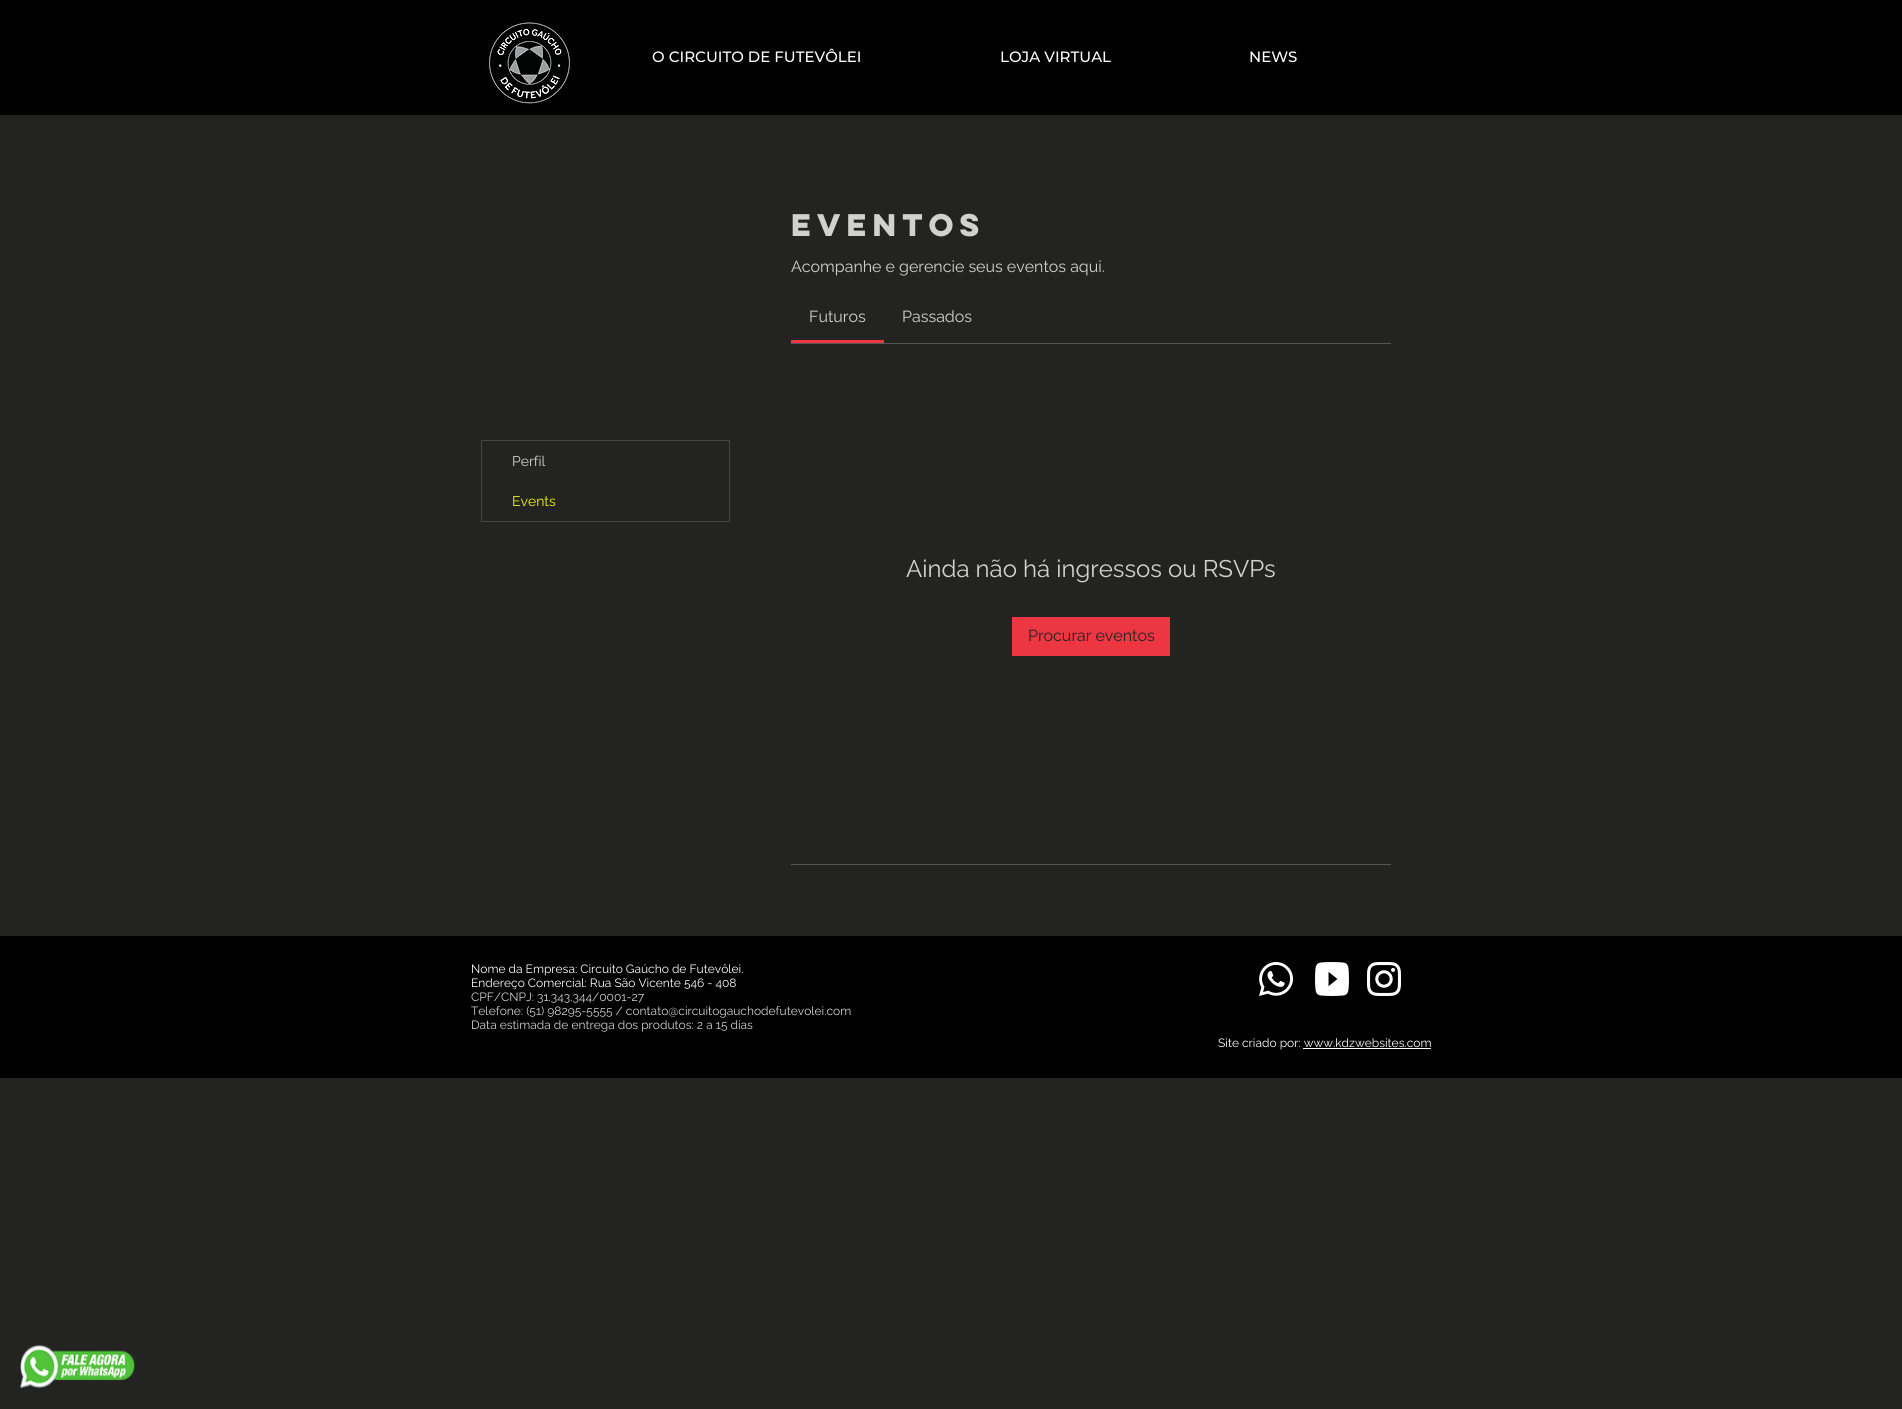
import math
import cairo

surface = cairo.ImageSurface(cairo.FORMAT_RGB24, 1902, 1409)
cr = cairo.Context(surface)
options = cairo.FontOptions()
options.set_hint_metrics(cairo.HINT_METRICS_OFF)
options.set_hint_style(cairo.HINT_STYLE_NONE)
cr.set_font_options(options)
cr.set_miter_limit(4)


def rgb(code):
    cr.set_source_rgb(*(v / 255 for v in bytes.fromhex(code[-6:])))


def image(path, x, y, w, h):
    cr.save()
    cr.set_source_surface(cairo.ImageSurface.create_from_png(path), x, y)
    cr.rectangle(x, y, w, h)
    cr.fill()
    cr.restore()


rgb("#232322")
cr.paint()
rgb("#000000")
cr.rectangle(0, 0, 1902, 115)
cr.fill()
image("img/1.png", 487, 20, 85, 84)
cr.rectangle(481.5, 440.5, 248, 81)
rgb("#464645")
cr.set_line_width(1)
cr.stroke()
for x, y, w, h, color in [
    (791, 340, 93, 3, "#ec3642"),
    (791, 343, 600, 1, "#575756"),
    (1012, 617, 158, 39, "#ec3642"),
    (791, 864, 600, 1, "#575756"),
    (0, 936, 1902, 142, "#000000"),
]:
    rgb(color)
    cr.rectangle(x, y, w, h)
    cr.fill()
image("img/2.png", 1259, 962, 34, 34)
image("img/3.png", 1315, 962, 34, 34)
image("img/4.png", 1367, 962, 34, 34)
rgb("#ffffff")
cr.rectangle(1303, 1048, 128, 1)
cr.fill()
image("img/5.png", 20, 1345, 115, 44)
cr.select_font_face("Montserrat Medium")
cr.set_font_size(15)
for x, y, s in [
    (652, 62, "O CIRCUITO DE FUTEVÔLEI"),
    (1000, 62, "LOJA VIRTUAL"),
    (1249, 62, "NEWS"),
]:
    cr.move_to(x, y)
    cr.show_text(s)
cr.select_font_face("Raleway")
cr.set_font_size(14)
rgb("#d1d1d0")
cr.move_to(512, 466)
cr.show_text("Perfil")
rgb("#f3f70a")
cr.move_to(512, 506)
cr.show_text("Events")
cr.select_font_face("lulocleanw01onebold", cairo.FONT_SLANT_NORMAL, cairo.FONT_WEIGHT_BOLD)
cr.set_font_size(28)
rgb("#d1d1d0")
cr.move_to(791, 236)
cr.show_text("Eventos")
cr.select_font_face("Raleway")
cr.set_font_size(16)
for x, y, s in [
    (791, 272, "Acompanhe e gerencie seus eventos aqui."),
    (809, 322, "Futuros"),
    (902, 322, "Passados"),
]:
    cr.move_to(x, y)
    cr.show_text(s)
cr.set_font_size(24)
cr.move_to(906, 577)
cr.show_text("Ainda não há ingressos ou RSVPs")
cr.set_font_size(16)
rgb("#232322")
cr.move_to(1028, 641)
cr.show_text("Procurar eventos")
cr.set_font_size(12)
rgb("#ffffff")
cr.move_to(471, 973)
cr.show_text("Nome da Empresa: Circuito Gaúcho de Futevôlei.")
cr.move_to(471, 987)
cr.show_text("Endereço Comercial: Rua São Vicente 546 - 408")
rgb("#d1d1d0")
for x, y, s in [
    (471, 1001, "CPF/CNPJ: 31.343.344/0001-27"),
    (471, 1015, "Telefone: (51) 98295-5555 / contato@circuitogauchodefutevolei.com"),
    (471, 1029, "Data estimada de entrega dos produtos: 2 a 15 dias"),
]:
    cr.move_to(x, y)
    cr.show_text(s)
rgb("#ffffff")
cr.move_to(1218, 1047)
cr.show_text("Site criado por: www.kdzwebsites.com")
surface.write_to_png("page.png")
